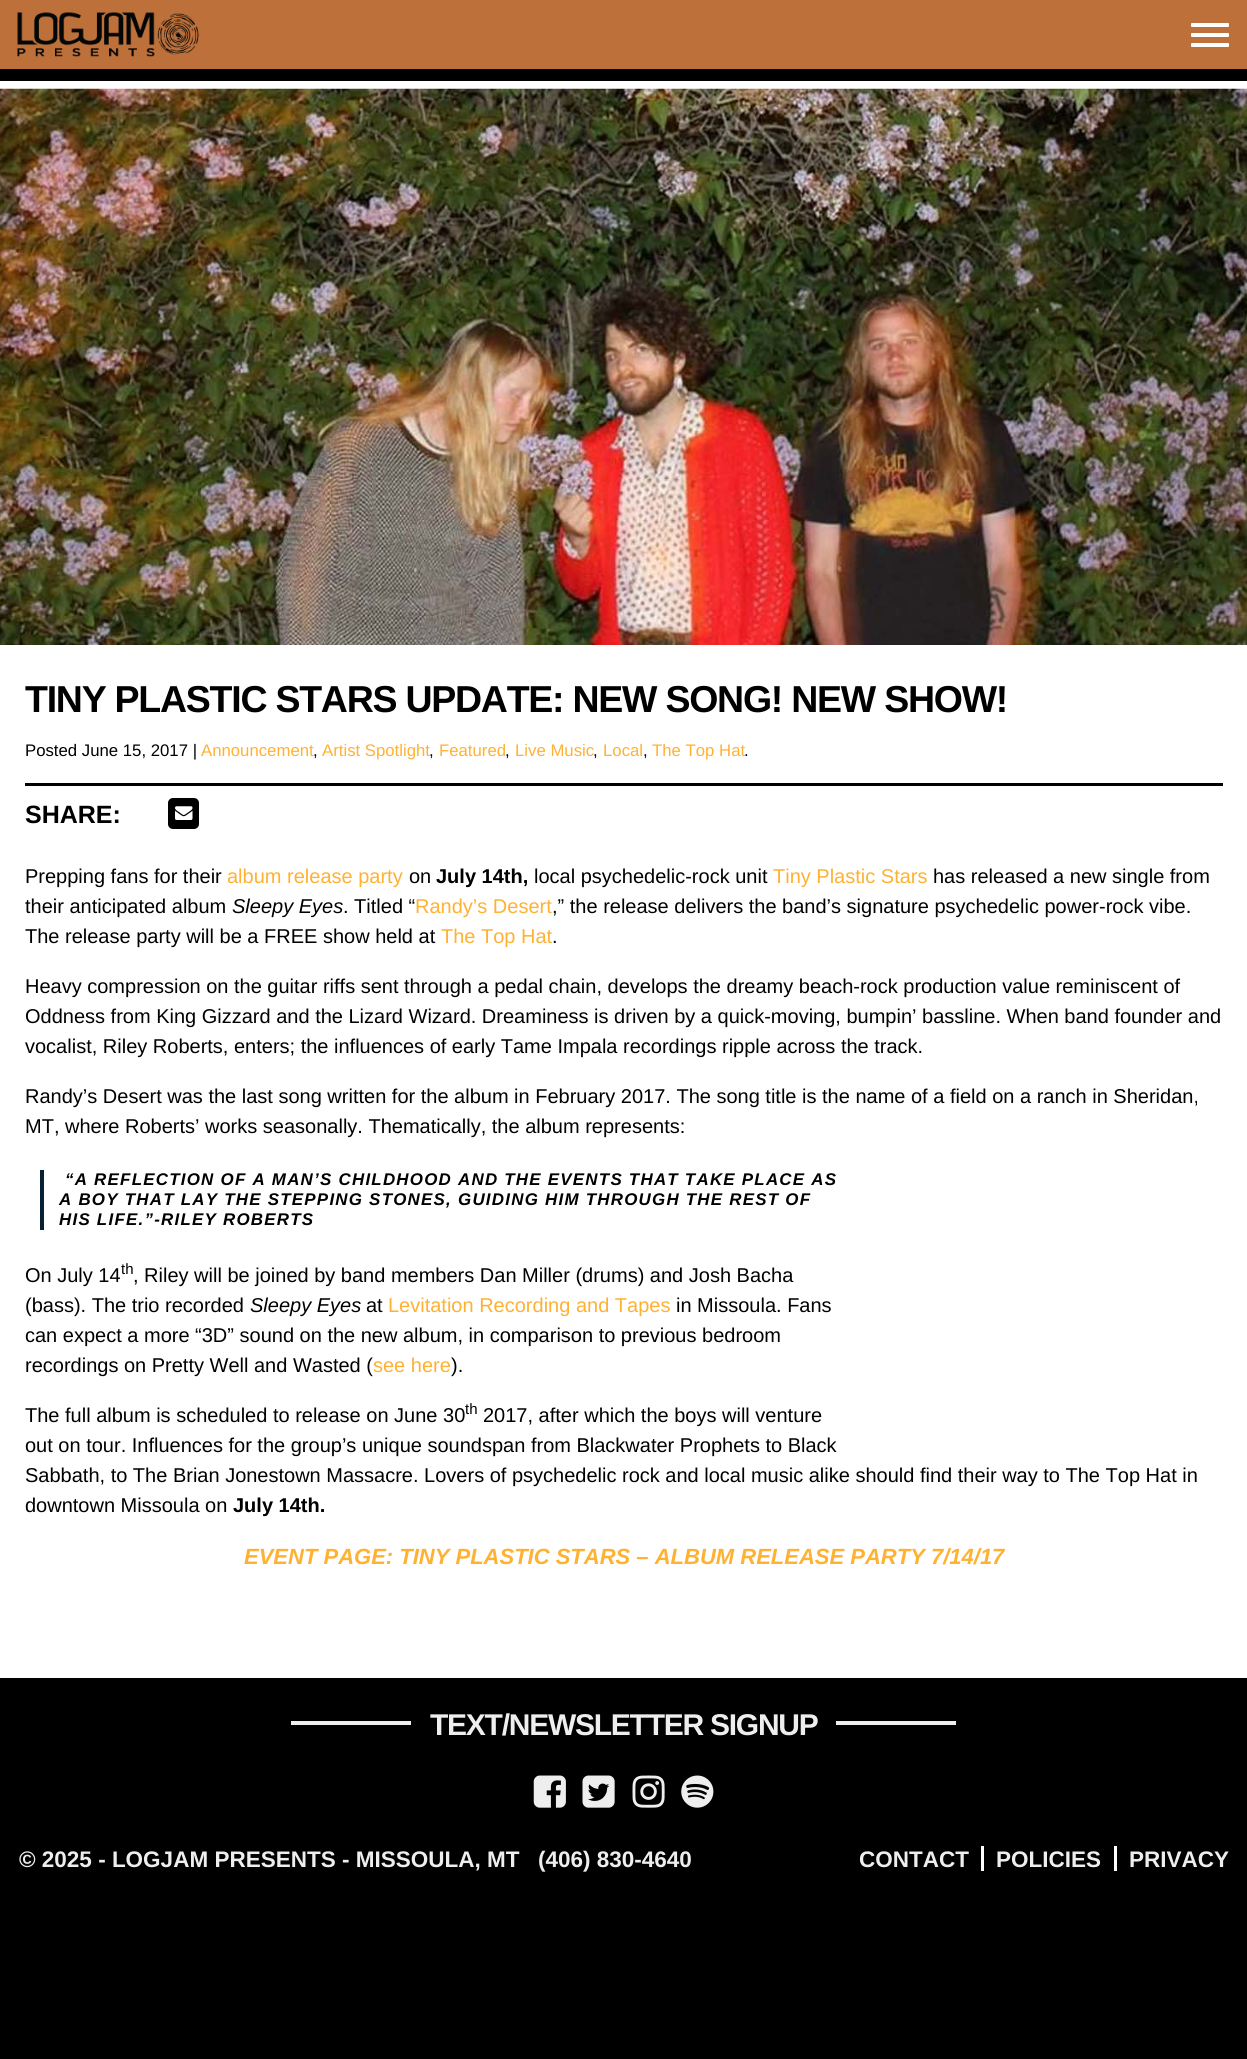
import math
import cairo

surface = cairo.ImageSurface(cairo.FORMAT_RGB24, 1247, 2059)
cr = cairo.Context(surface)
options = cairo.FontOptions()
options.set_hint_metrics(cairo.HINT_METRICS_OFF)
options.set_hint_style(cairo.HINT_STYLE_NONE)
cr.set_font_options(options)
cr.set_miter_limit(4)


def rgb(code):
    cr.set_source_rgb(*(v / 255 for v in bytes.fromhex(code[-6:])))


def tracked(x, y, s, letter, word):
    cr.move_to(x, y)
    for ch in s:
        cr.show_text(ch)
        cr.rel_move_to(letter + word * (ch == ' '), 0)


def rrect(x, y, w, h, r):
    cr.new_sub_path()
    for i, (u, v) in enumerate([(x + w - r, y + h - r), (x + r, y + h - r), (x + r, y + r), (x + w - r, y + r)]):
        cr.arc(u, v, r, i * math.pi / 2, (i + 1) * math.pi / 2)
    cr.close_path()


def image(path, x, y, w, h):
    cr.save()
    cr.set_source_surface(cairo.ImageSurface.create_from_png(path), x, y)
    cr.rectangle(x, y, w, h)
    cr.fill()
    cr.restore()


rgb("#000000")
cr.paint()
rgb("#bd703a")
cr.rectangle(0, 0, 1247, 69)
cr.fill()
image("img/1.png", 17, 12, 182, 45)
rgb("#ffffff")
rrect(1191, 23, 38, 4, 1)
cr.fill()
rrect(1191, 33, 38, 4, 1)
cr.fill()
rrect(1191, 43, 38, 4, 1)
cr.fill()
cr.rectangle(0, 81, 1247, 1597)
cr.fill()
image("img/2.png", 0, 88, 1247, 557)
rgb("#000000")
cr.rectangle(25, 783, 1198, 3)
cr.fill()
rrect(168, 798, 31, 31, 5)
cr.fill()
image("img/3.png", 175, 806, 18, 14)
for x, y, w, h, color in [
    (40, 1170, 4, 60, "#062135"),
    (291, 1721, 665, 4, "#eeeeee"),
    (411, 1721, 425, 4, "#000000"),
]:
    rgb(color)
    cr.rectangle(x, y, w, h)
    cr.fill()
image("img/4.png", 533, 1775, 33, 33)
image("img/5.png", 582, 1775, 33, 33)
image("img/6.png", 632, 1775, 33, 33)
image("img/7.png", 681, 1775, 33, 33)
rgb("#ffffff")
cr.rectangle(981, 1846, 3, 25)
cr.fill()
cr.rectangle(1114, 1846, 3, 25)
cr.fill()
cr.select_font_face("Liberation Sans", cairo.FONT_SLANT_NORMAL, cairo.FONT_WEIGHT_BOLD)
cr.set_font_size(37.5)
rgb("#000000")
tracked(25, 712, "TINY PLASTIC STARS UPDATE: NEW SONG! NEW SHOW!", -1.25, 0)
cr.select_font_face("Liberation Sans")
cr.set_font_size(16.75)
cr.move_to(25, 756)
cr.show_text("Posted June 15, 2017 |")
rgb("#ffb132")
cr.move_to(201, 756)
cr.show_text("Announcement")
rgb("#000000")
cr.move_to(313, 756)
cr.show_text(",")
rgb("#ffb132")
cr.move_to(322, 756)
cr.show_text("Artist Spotlight")
rgb("#000000")
cr.move_to(429, 756)
cr.show_text(",")
rgb("#ffb132")
cr.move_to(439, 756)
cr.show_text("Featured")
rgb("#000000")
cr.move_to(505, 756)
cr.show_text(",")
rgb("#ffb132")
cr.move_to(515, 756)
cr.show_text("Live Music")
rgb("#000000")
cr.move_to(593, 756)
cr.show_text(",")
rgb("#ffb132")
cr.move_to(603, 756)
cr.show_text("Local")
rgb("#000000")
cr.move_to(643, 756)
cr.show_text(",")
rgb("#ffb132")
cr.move_to(652, 756)
cr.show_text("The Top Hat")
rgb("#000000")
cr.move_to(744, 756)
cr.show_text(".")
cr.select_font_face("Liberation Sans", cairo.FONT_SLANT_NORMAL, cairo.FONT_WEIGHT_BOLD)
cr.set_font_size(25)
cr.move_to(25, 823)
cr.show_text("SHARE:")
cr.select_font_face("Liberation Sans")
cr.set_font_size(20)
cr.move_to(25, 883)
cr.show_text("Prepping fans for their")
rgb("#ffb132")
cr.move_to(227, 883)
cr.show_text("album release party")
rgb("#000000")
cr.move_to(409, 883)
cr.show_text("on")
cr.select_font_face("Liberation Sans", cairo.FONT_SLANT_NORMAL, cairo.FONT_WEIGHT_BOLD)
cr.move_to(436, 883)
cr.show_text("July 14th,")
cr.select_font_face("Liberation Sans")
cr.move_to(534, 883)
cr.show_text("local psychedelic-rock unit")
rgb("#ffb132")
cr.move_to(773, 883)
cr.show_text("Tiny Plastic Stars")
rgb("#000000")
cr.move_to(933, 883)
cr.show_text("has released a new single from")
cr.move_to(25, 913)
cr.show_text("their anticipated album")
cr.select_font_face("Liberation Sans", cairo.FONT_SLANT_ITALIC)
cr.move_to(232, 913)
cr.show_text("Sleepy Eyes")
cr.select_font_face("Liberation Sans")
cr.move_to(343, 913)
cr.show_text(". Titled “")
rgb("#ffb132")
cr.move_to(415, 913)
cr.show_text("Randy’s Desert")
rgb("#000000")
cr.move_to(552, 913)
cr.show_text(",” the release delivers the band’s signature psychedelic power-rock vibe.")
cr.move_to(25, 943)
cr.show_text("The release party will be a FREE show held at")
rgb("#ffb132")
cr.move_to(441, 943)
cr.show_text("The Top Hat")
rgb("#000000")
for x, y, s in [
    (552, 943, "."),
    (25, 993, "Heavy compression on the guitar riffs sent through a pedal chain, develops the dreamy beach-rock production value reminiscent of"),
    (25, 1023, "Oddness from King Gizzard and the Lizard Wizard. Dreaminess is driven by a quick-moving, bumpin’ bassline. When band founder and"),
    (25, 1053, "vocalist, Riley Roberts, enters; the influences of early Tame Impala recordings ripple across the track."),
    (25, 1103, "Randy’s Desert was the last song written for the album in February 2017. The song title is the name of a field on a ranch in Sheridan,"),
    (25, 1133, "MT, where Roberts’ works seasonally. Thematically, the album represents:"),
]:
    cr.move_to(x, y)
    cr.show_text(s)
cr.select_font_face("Liberation Sans", cairo.FONT_SLANT_ITALIC, cairo.FONT_WEIGHT_BOLD)
cr.set_font_size(16.9)
for x, y, s in [
    (65, 1185, "“A REFLECTION OF A MAN’S CHILDHOOD AND THE EVENTS THAT TAKE PLACE AS"),
    (59, 1205, "A BOY THAT LAY THE STEPPING STONES, GUIDING HIM THROUGH THE REST OF"),
    (59, 1225, "HIS LIFE.”-RILEY ROBERTS"),
]:
    tracked(x, y, s, 1.25, 0)
cr.select_font_face("Liberation Sans")
cr.set_font_size(20)
cr.move_to(25, 1282)
cr.show_text("On July 14")
cr.set_font_size(15)
cr.move_to(121, 1274)
cr.show_text("th")
cr.set_font_size(20)
cr.move_to(133, 1282)
cr.show_text(", Riley will be joined by band members Dan Miller (drums) and Josh Bacha")
cr.move_to(25, 1312)
cr.show_text("(bass). The trio recorded")
cr.select_font_face("Liberation Sans", cairo.FONT_SLANT_ITALIC)
cr.move_to(250, 1312)
cr.show_text("Sleepy Eyes")
cr.select_font_face("Liberation Sans")
cr.move_to(366, 1312)
cr.show_text("at")
rgb("#ffb132")
cr.move_to(388, 1312)
cr.show_text("Levitation Recording and Tapes")
rgb("#000000")
for x, y, s in [
    (676, 1312, "in Missoula. Fans"),
    (25, 1342, "can expect a more “3D” sound on the new album, in comparison to previous bedroom"),
    (25, 1372, "recordings on Pretty Well and Wasted ("),
]:
    cr.move_to(x, y)
    cr.show_text(s)
rgb("#ffb132")
cr.move_to(373, 1372)
cr.show_text("see here")
rgb("#000000")
cr.move_to(451, 1372)
cr.show_text(").")
cr.move_to(25, 1422)
cr.show_text("The full album is scheduled to release on June 30")
cr.set_font_size(15)
cr.move_to(465, 1414)
cr.show_text("th")
cr.set_font_size(20)
for x, y, s in [
    (483, 1422, "2017, after which the boys will venture"),
    (25, 1452, "out on tour. Influences for the group’s unique soundspan from Blackwater Prophets to Black"),
    (25, 1482, "Sabbath, to The Brian Jonestown Massacre. Lovers of psychedelic rock and local music alike should find their way to The Top Hat in"),
    (25, 1512, "downtown Missoula on"),
]:
    cr.move_to(x, y)
    cr.show_text(s)
cr.select_font_face("Liberation Sans", cairo.FONT_SLANT_NORMAL, cairo.FONT_WEIGHT_BOLD)
cr.move_to(233, 1512)
cr.show_text("July 14th.")
cr.select_font_face("Liberation Sans", cairo.FONT_SLANT_ITALIC, cairo.FONT_WEIGHT_BOLD)
cr.set_font_size(22)
rgb("#ffb132")
cr.move_to(244, 1564)
cr.show_text("EVENT PAGE: TINY PLASTIC STARS – ALBUM RELEASE PARTY 7/14/17")
cr.select_font_face("Liberation Sans", cairo.FONT_SLANT_NORMAL, cairo.FONT_WEIGHT_BOLD)
cr.set_font_size(30)
rgb("#eeeeee")
tracked(430, 1735, "TEXT/NEWSLETTER SIGNUP", -1.25, 0)
cr.set_font_size(22.5)
for x, y, s in [
    (19, 1867, "© 2025 - LOGJAM PRESENTS - MISSOULA, MT"),
    (538, 1867, "(406) 830-4640"),
    (859, 1867, "CONTACT"),
    (996, 1867, "POLICIES"),
    (1129, 1867, "PRIVACY"),
]:
    cr.move_to(x, y)
    cr.show_text(s)
surface.write_to_png("page.png")
